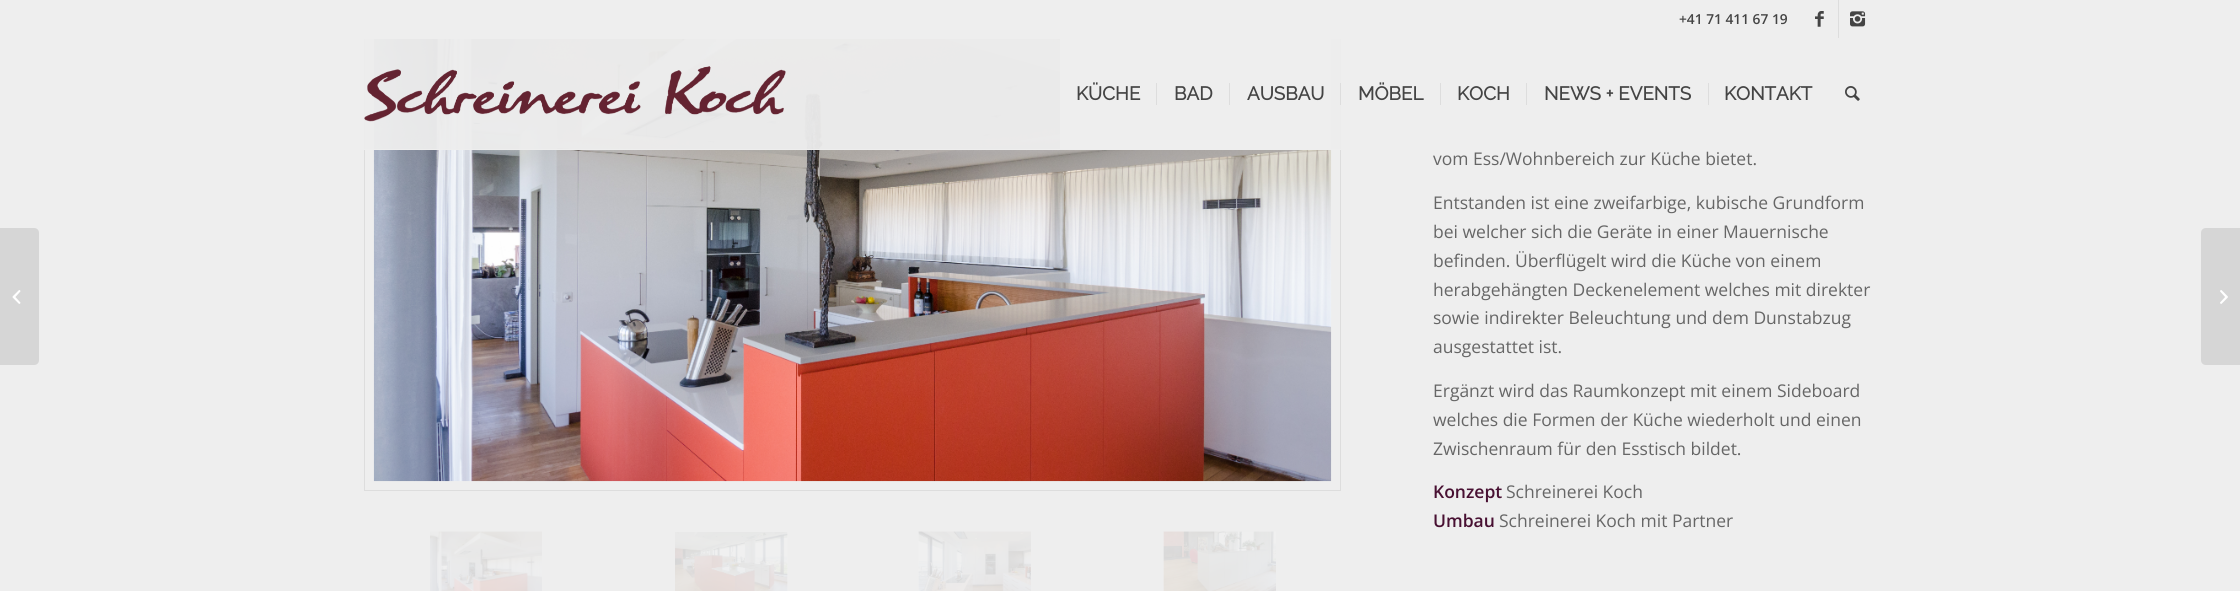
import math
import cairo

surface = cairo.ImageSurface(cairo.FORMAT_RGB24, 2240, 591)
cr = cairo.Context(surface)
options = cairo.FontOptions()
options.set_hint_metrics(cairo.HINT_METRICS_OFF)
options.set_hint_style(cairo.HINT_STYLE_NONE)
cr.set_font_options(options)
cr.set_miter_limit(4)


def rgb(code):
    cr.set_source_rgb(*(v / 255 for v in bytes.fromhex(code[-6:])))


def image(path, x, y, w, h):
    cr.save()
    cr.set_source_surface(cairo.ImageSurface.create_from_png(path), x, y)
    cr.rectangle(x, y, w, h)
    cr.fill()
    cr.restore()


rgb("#eeeeee")
cr.paint()
cr.rectangle(364.5, -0.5, 976, 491)
rgb("#dddddd")
cr.set_line_width(1)
cr.stroke()
rgb("#eeeeee")
cr.rectangle(364, 0, 977, 39)
cr.fill()
rgb("#dddddd")
cr.rectangle(1838, 0, 1, 38)
cr.fill()
image("img/1.png", 1815, 11, 9, 16)
image("img/2.png", 1850, 11, 16, 16)
image("img/6.png", 373, 39, 959, 443)
cr.set_source_rgba(0.933, 0.933, 0.933, 0.95)
cr.rectangle(364, 39, 977, 110)
cr.fill()
rgb("#eeeeee")
cr.rectangle(364, 149, 977, 1)
cr.fill()
image("img/3.png", 364, 66, 422, 56)
for x, y, w, h, color in [
    (1060, 39, 271, 110, "#eeeeee"),
    (1156, 83, 1, 22, "#dddddd"),
    (1229, 83, 1, 22, "#dddddd"),
    (1340, 83, 1, 22, "#dddddd"),
    (1440, 83, 1, 22, "#dddddd"),
    (1526, 83, 1, 22, "#dddddd"),
    (1708, 83, 1, 22, "#dddddd"),
]:
    rgb(color)
    cr.rectangle(x, y, w, h)
    cr.fill()
image("img/4.png", 1845, 86, 15, 15)
rgb("#d6d6d6")
cr.new_path()
cr.move_to(0, 228)
cr.line_to(34, 228)
cr.curve_to(37, 228, 39, 230, 39, 233)
cr.line_to(39, 360)
cr.curve_to(39, 363, 37, 365, 34, 365)
cr.line_to(0, 365)
cr.close_path()
cr.fill()
image("img/5.png", 12, 290, 9, 14)
image("img/7.png", 430, 531, 112, 60)
image("img/8.png", 675, 532, 113, 59)
image("img/9.png", 918, 531, 113, 60)
image("img/10.png", 1163, 531, 113, 60)
cr.new_path()
cr.move_to(2206, 228)
cr.line_to(2240, 228)
cr.line_to(2240, 365)
cr.line_to(2206, 365)
cr.curve_to(2203, 365, 2201, 363, 2201, 360)
cr.line_to(2201, 233)
cr.curve_to(2201, 230, 2203, 228, 2206, 228)
cr.close_path()
cr.fill()
image("img/11.png", 2220, 290, 8, 14)
cr.select_font_face("Open Sans SemiBold")
cr.set_font_size(13.75)
rgb("#444444")
cr.move_to(1679, 24)
cr.show_text("+41 71 411 67 19")
cr.select_font_face("Raleway", cairo.FONT_SLANT_NORMAL, cairo.FONT_WEIGHT_BOLD)
cr.set_font_size(18.75)
for x, y, s in [
    (1076, 100, "KÜCHE"),
    (1174, 100, "BAD"),
    (1247, 100, "AUSBAU"),
    (1358, 100, "MÖBEL"),
    (1457, 100, "KOCH"),
    (1544, 100, "NEWS + EVENTS"),
    (1724, 100, "KONTAKT"),
]:
    cr.move_to(x, y)
    cr.show_text(s)
cr.select_font_face("Open Sans")
cr.set_font_size(17.5)
rgb("#666666")
for x, y, s in [
    (1433, 165, "vom Ess/Wohnbereich zur Küche bietet."),
    (1433, 209, "Entstanden ist eine zweifarbige, kubische Grundform"),
    (1433, 238, "bei welcher sich die Geräte in einer Mauernische"),
    (1433, 267, "befinden. Überflügelt wird die Küche von einem"),
    (1433, 296, "herabgehängten Deckenelement welches mit direkter"),
    (1433, 324, "sowie indirekter Beleuchtung und dem Dunstabzug"),
    (1433, 353, "ausgestattet ist."),
    (1433, 397, "Ergänzt wird das Raumkonzept mit einem Sideboard"),
    (1433, 426, "welches die Formen der Küche wiederholt und einen"),
    (1433, 455, "Zwischenraum für den Esstisch bildet."),
]:
    cr.move_to(x, y)
    cr.show_text(s)
cr.select_font_face("Open Sans SemiBold")
rgb("#481032")
cr.move_to(1433, 498)
cr.show_text("Konzept")
cr.select_font_face("Open Sans")
rgb("#666666")
cr.move_to(1506, 498)
cr.show_text("Schreinerei Koch")
cr.select_font_face("Open Sans SemiBold")
rgb("#481032")
cr.move_to(1433, 527)
cr.show_text("Umbau")
cr.select_font_face("Open Sans")
rgb("#666666")
cr.move_to(1499, 527)
cr.show_text("Schreinerei Koch mit Partner")
surface.write_to_png("page.png")
